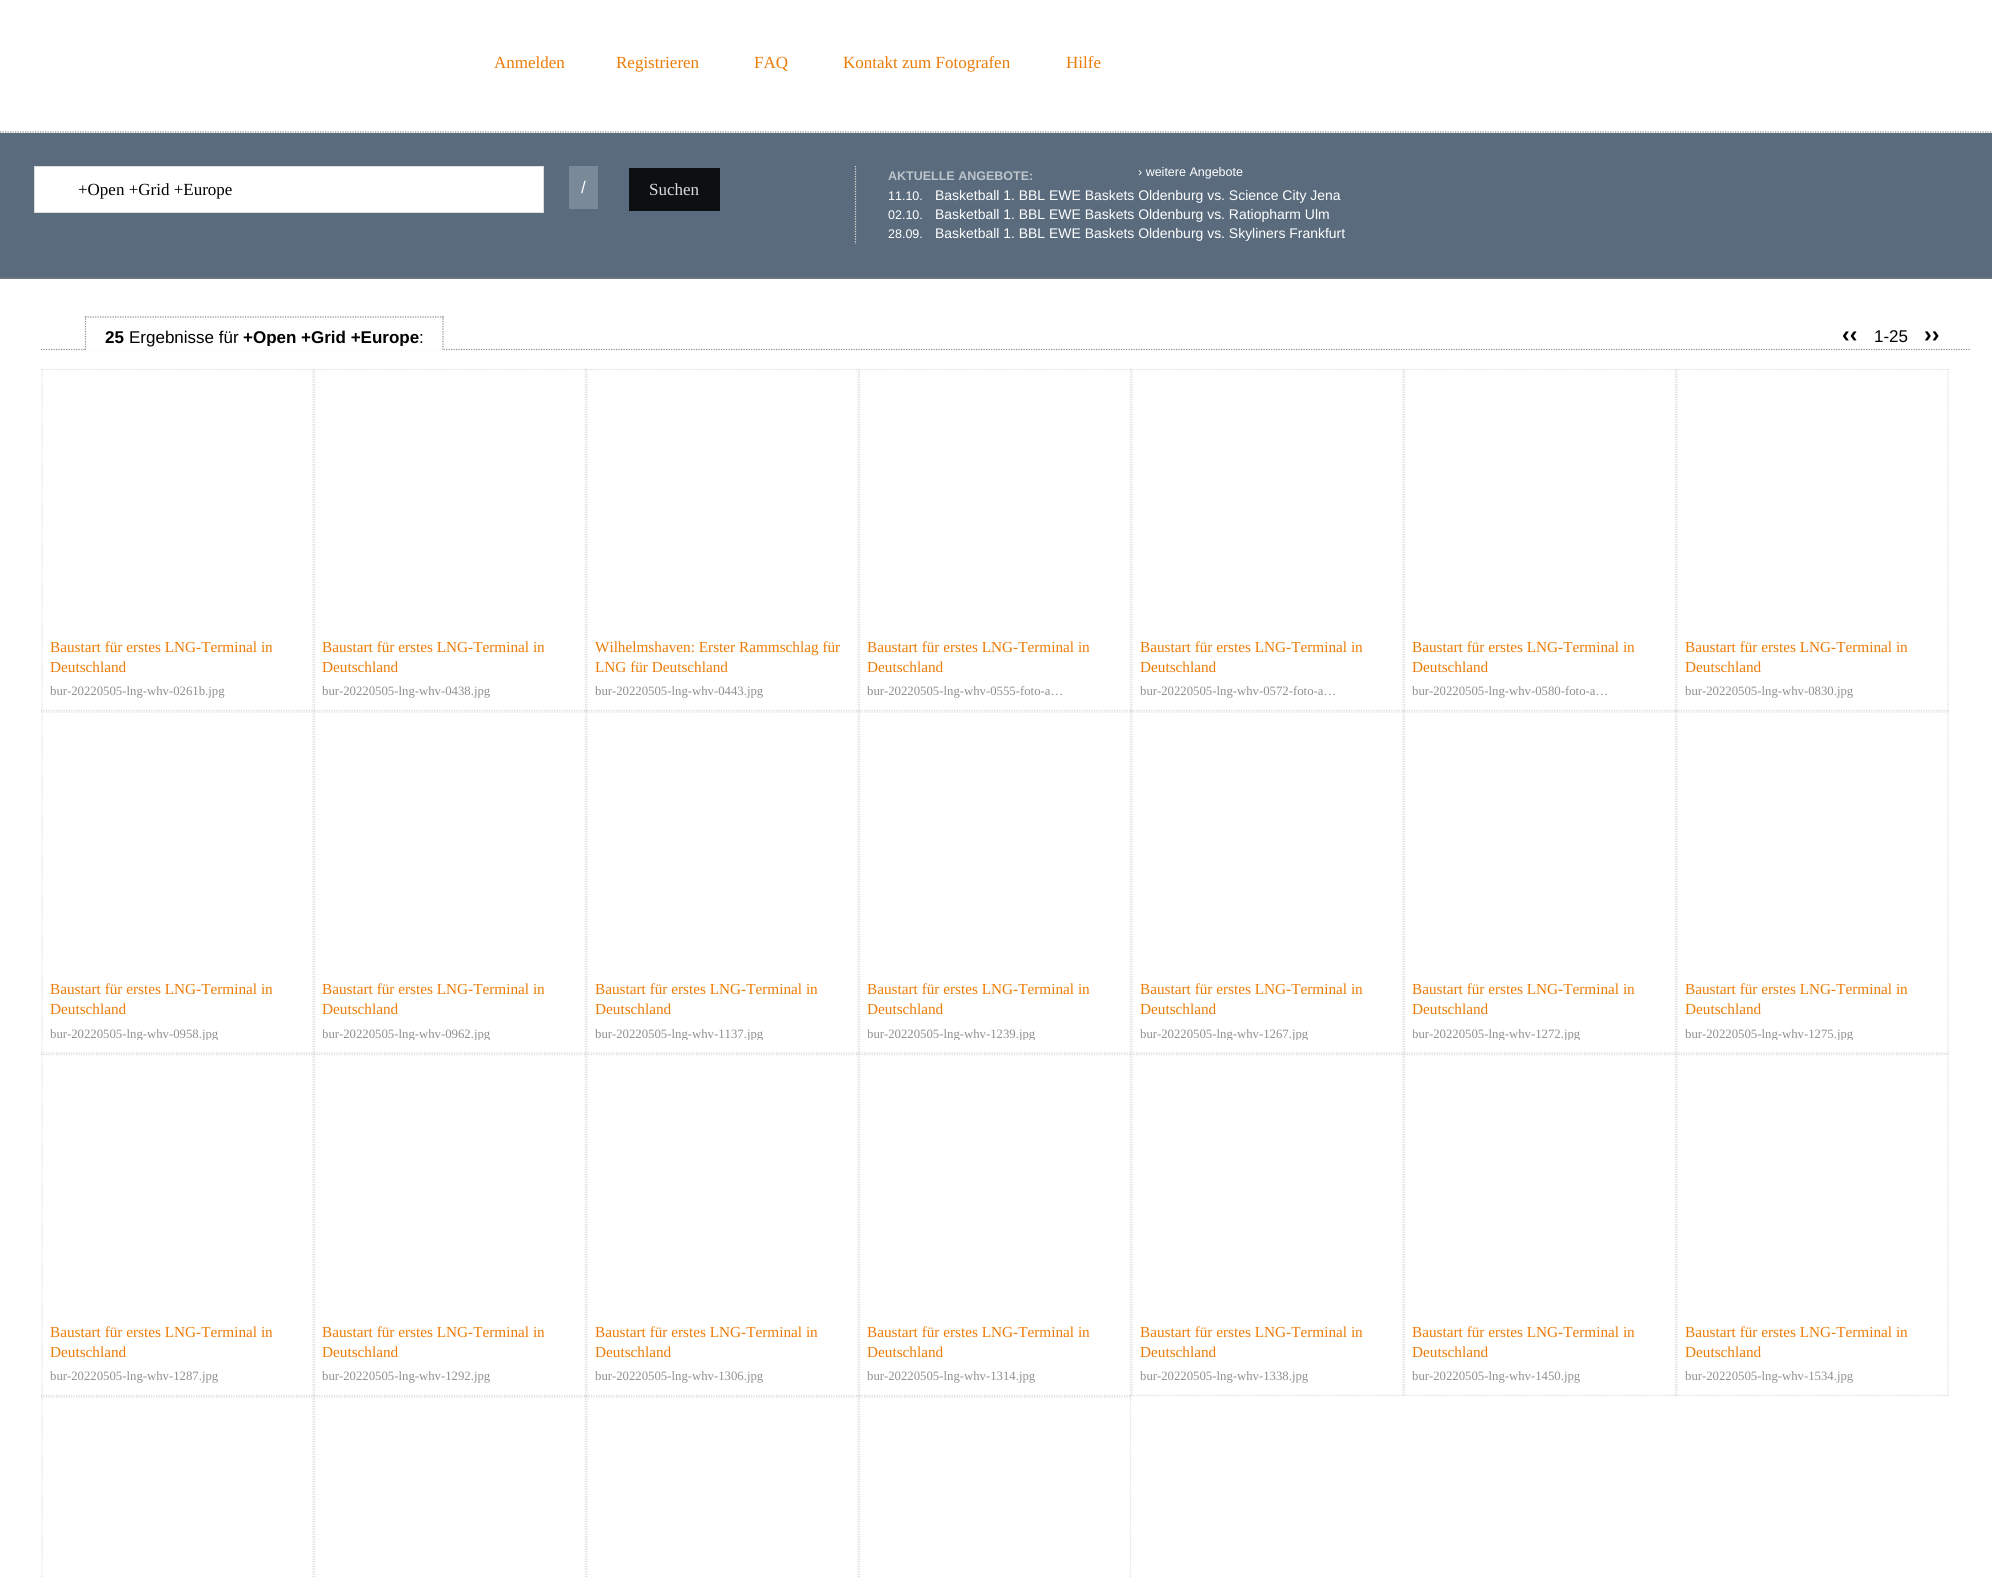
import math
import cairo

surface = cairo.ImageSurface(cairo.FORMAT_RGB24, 1992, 1577)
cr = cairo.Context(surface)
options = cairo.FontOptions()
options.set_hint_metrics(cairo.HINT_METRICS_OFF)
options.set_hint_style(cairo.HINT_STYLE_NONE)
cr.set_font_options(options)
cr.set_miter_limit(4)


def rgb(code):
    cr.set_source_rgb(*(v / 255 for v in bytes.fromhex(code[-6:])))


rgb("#ffffff")
cr.paint()
cr.new_path()
cr.move_to(0, 132)
cr.line_to(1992.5, 132)
rgb("#8f8f8f")
cr.set_line_width(1.2)
cr.set_dash([1.25, 1.25])
cr.stroke()
rgb("#596b7d")
cr.rectangle(0, 133, 1992, 146)
cr.fill()
cr.new_path()
cr.move_to(0, 278)
cr.line_to(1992.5, 278)
rgb("#8f8f8f")
cr.stroke()
rgb("#ffffff")
cr.rectangle(34.5, 166.5, 509, 46)
cr.fill_preserve()
rgb("#dddddd")
cr.set_line_width(1)
cr.set_dash([])
cr.stroke()
rgb("#7a8997")
cr.rectangle(569, 166, 29, 43)
cr.fill()
rgb("#0d1013")
cr.rectangle(629, 168, 91, 43)
cr.fill()
cr.new_path()
cr.move_to(855.5, 166)
cr.line_to(855.5, 244)
rgb("#dddddd")
cr.set_line_width(1.2)
cr.set_dash([1.25, 1.25])
cr.stroke()
cr.new_path()
cr.move_to(41, 349.5)
cr.line_to(1970, 349.5)
rgb("#8f8f8f")
cr.stroke()
rgb("#ffffff")
cr.rectangle(86, 348, 358, 2)
cr.fill()
cr.new_path()
cr.move_to(85, 317)
cr.line_to(444, 317)
rgb("#8f8f8f")
cr.stroke()
cr.new_path()
cr.move_to(443, 316)
cr.line_to(443, 350)
cr.stroke()
cr.new_path()
cr.move_to(85.5, 316)
cr.line_to(85.5, 350)
cr.stroke()
cr.new_path()
cr.move_to(41, 369.5)
cr.line_to(314, 369.5)
rgb("#dddddd")
cr.stroke()
cr.new_path()
cr.move_to(313, 369)
cr.line_to(313, 711)
cr.stroke()
cr.new_path()
cr.move_to(41, 710.5)
cr.line_to(314, 710.5)
cr.stroke()
cr.new_path()
cr.move_to(42, 369)
cr.line_to(42, 711)
cr.stroke()
cr.new_path()
cr.move_to(314, 369.5)
cr.line_to(586, 369.5)
cr.stroke()
cr.new_path()
cr.move_to(585.5, 369)
cr.line_to(585.5, 711)
cr.stroke()
cr.new_path()
cr.move_to(314, 710.5)
cr.line_to(586, 710.5)
cr.stroke()
cr.new_path()
cr.move_to(314.5, 369)
cr.line_to(314.5, 711)
cr.stroke()
cr.new_path()
cr.move_to(586, 369.5)
cr.line_to(859, 369.5)
cr.stroke()
cr.new_path()
cr.move_to(858, 369)
cr.line_to(858, 711)
cr.stroke()
cr.new_path()
cr.move_to(586, 710.5)
cr.line_to(859, 710.5)
cr.stroke()
cr.new_path()
cr.move_to(587, 369)
cr.line_to(587, 711)
cr.stroke()
cr.new_path()
cr.move_to(859, 369.5)
cr.line_to(1131, 369.5)
cr.stroke()
cr.new_path()
cr.move_to(1130.5, 369)
cr.line_to(1130.5, 711)
cr.stroke()
cr.new_path()
cr.move_to(859, 710.5)
cr.line_to(1131, 710.5)
cr.stroke()
cr.new_path()
cr.move_to(859.5, 369)
cr.line_to(859.5, 711)
cr.stroke()
cr.new_path()
cr.move_to(1131, 369.5)
cr.line_to(1404, 369.5)
cr.stroke()
cr.new_path()
cr.move_to(1403, 369)
cr.line_to(1403, 711)
cr.stroke()
cr.new_path()
cr.move_to(1131, 710.5)
cr.line_to(1404, 710.5)
cr.stroke()
cr.new_path()
cr.move_to(1132, 369)
cr.line_to(1132, 711)
cr.stroke()
cr.new_path()
cr.move_to(1404, 369.5)
cr.line_to(1676, 369.5)
cr.stroke()
cr.new_path()
cr.move_to(1675.5, 369)
cr.line_to(1675.5, 711)
cr.stroke()
cr.new_path()
cr.move_to(1404, 710.5)
cr.line_to(1676, 710.5)
cr.stroke()
cr.new_path()
cr.move_to(1404.5, 369)
cr.line_to(1404.5, 711)
cr.stroke()
cr.new_path()
cr.move_to(1676, 369.5)
cr.line_to(1949, 369.5)
cr.stroke()
cr.new_path()
cr.move_to(1948, 369)
cr.line_to(1948, 711)
cr.stroke()
cr.new_path()
cr.move_to(1676, 710.5)
cr.line_to(1949, 710.5)
cr.stroke()
cr.new_path()
cr.move_to(1677, 369)
cr.line_to(1677, 711)
cr.stroke()
cr.new_path()
cr.move_to(41, 712)
cr.line_to(314, 712)
cr.stroke()
cr.new_path()
cr.move_to(313, 711)
cr.line_to(313, 1054)
cr.stroke()
cr.new_path()
cr.move_to(41, 1053)
cr.line_to(314, 1053)
cr.stroke()
cr.new_path()
cr.move_to(42, 711)
cr.line_to(42, 1054)
cr.stroke()
cr.new_path()
cr.move_to(314, 712)
cr.line_to(586, 712)
cr.stroke()
cr.new_path()
cr.move_to(585.5, 711)
cr.line_to(585.5, 1054)
cr.stroke()
cr.new_path()
cr.move_to(314, 1053)
cr.line_to(586, 1053)
cr.stroke()
cr.new_path()
cr.move_to(314.5, 711)
cr.line_to(314.5, 1054)
cr.stroke()
cr.new_path()
cr.move_to(586, 712)
cr.line_to(859, 712)
cr.stroke()
cr.new_path()
cr.move_to(858, 711)
cr.line_to(858, 1054)
cr.stroke()
cr.new_path()
cr.move_to(586, 1053)
cr.line_to(859, 1053)
cr.stroke()
cr.new_path()
cr.move_to(587, 711)
cr.line_to(587, 1054)
cr.stroke()
cr.new_path()
cr.move_to(859, 712)
cr.line_to(1131, 712)
cr.stroke()
cr.new_path()
cr.move_to(1130.5, 711)
cr.line_to(1130.5, 1054)
cr.stroke()
cr.new_path()
cr.move_to(859, 1053)
cr.line_to(1131, 1053)
cr.stroke()
cr.new_path()
cr.move_to(859.5, 711)
cr.line_to(859.5, 1054)
cr.stroke()
cr.new_path()
cr.move_to(1131, 712)
cr.line_to(1404, 712)
cr.stroke()
cr.new_path()
cr.move_to(1403, 711)
cr.line_to(1403, 1054)
cr.stroke()
cr.new_path()
cr.move_to(1131, 1053)
cr.line_to(1404, 1053)
cr.stroke()
cr.new_path()
cr.move_to(1132, 711)
cr.line_to(1132, 1054)
cr.stroke()
cr.new_path()
cr.move_to(1404, 712)
cr.line_to(1676, 712)
cr.stroke()
cr.new_path()
cr.move_to(1675.5, 711)
cr.line_to(1675.5, 1054)
cr.stroke()
cr.new_path()
cr.move_to(1404, 1053)
cr.line_to(1676, 1053)
cr.stroke()
cr.new_path()
cr.move_to(1404.5, 711)
cr.line_to(1404.5, 1054)
cr.stroke()
cr.new_path()
cr.move_to(1676, 712)
cr.line_to(1949, 712)
cr.stroke()
cr.new_path()
cr.move_to(1948, 711)
cr.line_to(1948, 1054)
cr.stroke()
cr.new_path()
cr.move_to(1676, 1053)
cr.line_to(1949, 1053)
cr.stroke()
cr.new_path()
cr.move_to(1677, 711)
cr.line_to(1677, 1054)
cr.stroke()
cr.new_path()
cr.move_to(41, 1054.5)
cr.line_to(314, 1054.5)
cr.stroke()
cr.new_path()
cr.move_to(313, 1054)
cr.line_to(313, 1396)
cr.stroke()
cr.new_path()
cr.move_to(41, 1395.5)
cr.line_to(314, 1395.5)
cr.stroke()
cr.new_path()
cr.move_to(42, 1054)
cr.line_to(42, 1396)
cr.stroke()
cr.new_path()
cr.move_to(314, 1054.5)
cr.line_to(586, 1054.5)
cr.stroke()
cr.new_path()
cr.move_to(585.5, 1054)
cr.line_to(585.5, 1396)
cr.stroke()
cr.new_path()
cr.move_to(314, 1395.5)
cr.line_to(586, 1395.5)
cr.stroke()
cr.new_path()
cr.move_to(314.5, 1054)
cr.line_to(314.5, 1396)
cr.stroke()
cr.new_path()
cr.move_to(586, 1054.5)
cr.line_to(859, 1054.5)
cr.stroke()
cr.new_path()
cr.move_to(858, 1054)
cr.line_to(858, 1396)
cr.stroke()
cr.new_path()
cr.move_to(586, 1395.5)
cr.line_to(859, 1395.5)
cr.stroke()
cr.new_path()
cr.move_to(587, 1054)
cr.line_to(587, 1396)
cr.stroke()
cr.new_path()
cr.move_to(859, 1054.5)
cr.line_to(1131, 1054.5)
cr.stroke()
cr.new_path()
cr.move_to(1130.5, 1054)
cr.line_to(1130.5, 1396)
cr.stroke()
cr.new_path()
cr.move_to(859, 1395.5)
cr.line_to(1131, 1395.5)
cr.stroke()
cr.new_path()
cr.move_to(859.5, 1054)
cr.line_to(859.5, 1396)
cr.stroke()
cr.new_path()
cr.move_to(1131, 1054.5)
cr.line_to(1404, 1054.5)
cr.stroke()
cr.new_path()
cr.move_to(1403, 1054)
cr.line_to(1403, 1396)
cr.stroke()
cr.new_path()
cr.move_to(1131, 1395.5)
cr.line_to(1404, 1395.5)
cr.stroke()
cr.new_path()
cr.move_to(1132, 1054)
cr.line_to(1132, 1396)
cr.stroke()
cr.new_path()
cr.move_to(1404, 1054.5)
cr.line_to(1676, 1054.5)
cr.stroke()
cr.new_path()
cr.move_to(1675.5, 1054)
cr.line_to(1675.5, 1396)
cr.stroke()
cr.new_path()
cr.move_to(1404, 1395.5)
cr.line_to(1676, 1395.5)
cr.stroke()
cr.new_path()
cr.move_to(1404.5, 1054)
cr.line_to(1404.5, 1396)
cr.stroke()
cr.new_path()
cr.move_to(1676, 1054.5)
cr.line_to(1949, 1054.5)
cr.stroke()
cr.new_path()
cr.move_to(1948, 1054)
cr.line_to(1948, 1396)
cr.stroke()
cr.new_path()
cr.move_to(1676, 1395.5)
cr.line_to(1949, 1395.5)
cr.stroke()
cr.new_path()
cr.move_to(1677, 1054)
cr.line_to(1677, 1396)
cr.stroke()
cr.new_path()
cr.move_to(41, 1397)
cr.line_to(314, 1397)
cr.stroke()
cr.new_path()
cr.move_to(313, 1396)
cr.line_to(313, 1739)
cr.stroke()
cr.new_path()
cr.move_to(42, 1396)
cr.line_to(42, 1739)
cr.stroke()
cr.new_path()
cr.move_to(314, 1397)
cr.line_to(586, 1397)
cr.stroke()
cr.new_path()
cr.move_to(585.5, 1396)
cr.line_to(585.5, 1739)
cr.stroke()
cr.new_path()
cr.move_to(314.5, 1396)
cr.line_to(314.5, 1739)
cr.stroke()
cr.new_path()
cr.move_to(586, 1397)
cr.line_to(859, 1397)
cr.stroke()
cr.new_path()
cr.move_to(858, 1396)
cr.line_to(858, 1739)
cr.stroke()
cr.new_path()
cr.move_to(587, 1396)
cr.line_to(587, 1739)
cr.stroke()
cr.new_path()
cr.move_to(859, 1397)
cr.line_to(1131, 1397)
cr.stroke()
cr.new_path()
cr.move_to(1130.5, 1396)
cr.line_to(1130.5, 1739)
cr.stroke()
cr.new_path()
cr.move_to(859.5, 1396)
cr.line_to(859.5, 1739)
cr.stroke()
cr.select_font_face("Liberation Serif")
cr.set_font_size(17)
rgb("#ed7b07")
for x, y, s in [
    (494, 68, "Anmelden"),
    (616, 68, "Registrieren"),
    (754, 68, "FAQ"),
    (843, 68, "Kontakt zum Fotografen"),
    (1066, 68, "Hilfe"),
]:
    cr.move_to(x, y)
    cr.show_text(s)
rgb("#000000")
cr.move_to(78, 195)
cr.show_text("+Open +Grid +Europe")
cr.select_font_face("Liberation Sans")
rgb("#ffffff")
cr.move_to(581, 193)
cr.show_text("/")
cr.select_font_face("Liberation Serif")
rgb("#dbdbdc")
cr.move_to(649, 195)
cr.show_text("Suchen")
cr.select_font_face("Liberation Sans", cairo.FONT_SLANT_NORMAL, cairo.FONT_WEIGHT_BOLD)
cr.set_font_size(12.5)
rgb("#bdc4cb")
cr.move_to(888, 180)
cr.show_text("AKTUELLE ANGEBOTE:")
cr.select_font_face("Liberation Sans")
rgb("#ffffff")
cr.move_to(1138, 176)
cr.show_text("› weitere Angebote")
cr.move_to(888, 200)
cr.show_text("11.10.")
cr.set_font_size(13.95)
cr.move_to(935, 200)
cr.show_text("Basketball 1. BBL EWE Baskets Oldenburg vs. Science City Jena")
cr.set_font_size(12.5)
cr.move_to(888, 219)
cr.show_text("02.10.")
cr.set_font_size(13.95)
cr.move_to(935, 219)
cr.show_text("Basketball 1. BBL EWE Baskets Oldenburg vs. Ratiopharm Ulm")
cr.set_font_size(12.5)
cr.move_to(888, 238)
cr.show_text("28.09.")
cr.set_font_size(13.95)
cr.move_to(935, 238)
cr.show_text("Basketball 1. BBL EWE Baskets Oldenburg vs. Skyliners Frankfurt")
cr.select_font_face("Liberation Sans", cairo.FONT_SLANT_NORMAL, cairo.FONT_WEIGHT_BOLD)
cr.set_font_size(17)
rgb("#000000")
cr.move_to(105, 343)
cr.show_text("25")
cr.select_font_face("Liberation Sans")
cr.move_to(129, 343)
cr.show_text("Ergebnisse für")
cr.save()
cr.rectangle(219, 328, 200, 18)
cr.clip()
cr.select_font_face("Liberation Sans", cairo.FONT_SLANT_NORMAL, cairo.FONT_WEIGHT_BOLD)
cr.move_to(243, 343)
cr.show_text("+Open +Grid +Europe")
cr.restore()
cr.move_to(419, 343)
cr.show_text(":")
cr.select_font_face("Liberation Sans", cairo.FONT_SLANT_NORMAL, cairo.FONT_WEIGHT_BOLD)
cr.set_font_size(23)
cr.move_to(1842, 342)
cr.show_text("‹‹")
cr.select_font_face("Liberation Sans")
cr.set_font_size(17)
cr.move_to(1874, 342)
cr.show_text("1-25")
cr.select_font_face("Liberation Sans", cairo.FONT_SLANT_NORMAL, cairo.FONT_WEIGHT_BOLD)
cr.set_font_size(23)
cr.move_to(1924, 342)
cr.show_text("››")
cr.select_font_face("Liberation Serif")
cr.set_font_size(15.25)
rgb("#ed7b07")
cr.move_to(50, 652)
cr.show_text("Baustart für erstes LNG-Terminal in")
cr.move_to(50, 672)
cr.show_text("Deutschland")
cr.set_font_size(12.75)
rgb("#8f8f8f")
cr.move_to(50, 695)
cr.show_text("bur-20220505-lng-whv-0261b.jpg")
cr.set_font_size(15.25)
rgb("#ed7b07")
cr.move_to(322, 652)
cr.show_text("Baustart für erstes LNG-Terminal in")
cr.move_to(322, 672)
cr.show_text("Deutschland")
cr.set_font_size(12.75)
rgb("#8f8f8f")
cr.move_to(322, 695)
cr.show_text("bur-20220505-lng-whv-0438.jpg")
cr.set_font_size(15.25)
rgb("#ed7b07")
cr.move_to(595, 652)
cr.show_text("Wilhelmshaven: Erster Rammschlag für")
cr.move_to(595, 672)
cr.show_text("LNG für Deutschland")
cr.set_font_size(12.75)
rgb("#8f8f8f")
cr.move_to(595, 695)
cr.show_text("bur-20220505-lng-whv-0443.jpg")
cr.set_font_size(15.25)
rgb("#ed7b07")
cr.move_to(867, 652)
cr.show_text("Baustart für erstes LNG-Terminal in")
cr.move_to(867, 672)
cr.show_text("Deutschland")
cr.set_font_size(12.75)
rgb("#8f8f8f")
cr.move_to(867, 695)
cr.show_text("bur-20220505-lng-whv-0555-foto-a…")
cr.set_font_size(15.25)
rgb("#ed7b07")
cr.move_to(1140, 652)
cr.show_text("Baustart für erstes LNG-Terminal in")
cr.move_to(1140, 672)
cr.show_text("Deutschland")
cr.set_font_size(12.75)
rgb("#8f8f8f")
cr.move_to(1140, 695)
cr.show_text("bur-20220505-lng-whv-0572-foto-a…")
cr.set_font_size(15.25)
rgb("#ed7b07")
cr.move_to(1412, 652)
cr.show_text("Baustart für erstes LNG-Terminal in")
cr.move_to(1412, 672)
cr.show_text("Deutschland")
cr.set_font_size(12.75)
rgb("#8f8f8f")
cr.move_to(1412, 695)
cr.show_text("bur-20220505-lng-whv-0580-foto-a…")
cr.set_font_size(15.25)
rgb("#ed7b07")
cr.move_to(1685, 652)
cr.show_text("Baustart für erstes LNG-Terminal in")
cr.move_to(1685, 672)
cr.show_text("Deutschland")
cr.set_font_size(12.75)
rgb("#8f8f8f")
cr.move_to(1685, 695)
cr.show_text("bur-20220505-lng-whv-0830.jpg")
cr.set_font_size(15.25)
rgb("#ed7b07")
cr.move_to(50, 994)
cr.show_text("Baustart für erstes LNG-Terminal in")
cr.move_to(50, 1014)
cr.show_text("Deutschland")
cr.save()
cr.rectangle(50, 1026, 198, 14)
cr.clip()
cr.set_font_size(12.75)
rgb("#8f8f8f")
cr.move_to(50, 1038)
cr.show_text("bur-20220505-lng-whv-0958.jpg")
cr.restore()
cr.move_to(322, 994)
cr.show_text("Baustart für erstes LNG-Terminal in")
cr.move_to(322, 1014)
cr.show_text("Deutschland")
cr.save()
cr.rectangle(323, 1026, 197, 14)
cr.clip()
cr.set_font_size(12.75)
rgb("#8f8f8f")
cr.move_to(322, 1038)
cr.show_text("bur-20220505-lng-whv-0962.jpg")
cr.restore()
cr.move_to(595, 994)
cr.show_text("Baustart für erstes LNG-Terminal in")
cr.move_to(595, 1014)
cr.show_text("Deutschland")
cr.save()
cr.rectangle(595, 1026, 198, 14)
cr.clip()
cr.set_font_size(12.75)
rgb("#8f8f8f")
cr.move_to(595, 1038)
cr.show_text("bur-20220505-lng-whv-1137.jpg")
cr.restore()
cr.move_to(867, 994)
cr.show_text("Baustart für erstes LNG-Terminal in")
cr.move_to(867, 1014)
cr.show_text("Deutschland")
cr.save()
cr.rectangle(868, 1026, 197, 14)
cr.clip()
cr.set_font_size(12.75)
rgb("#8f8f8f")
cr.move_to(867, 1038)
cr.show_text("bur-20220505-lng-whv-1239.jpg")
cr.restore()
cr.move_to(1140, 994)
cr.show_text("Baustart für erstes LNG-Terminal in")
cr.move_to(1140, 1014)
cr.show_text("Deutschland")
cr.save()
cr.rectangle(1140, 1026, 198, 14)
cr.clip()
cr.set_font_size(12.75)
rgb("#8f8f8f")
cr.move_to(1140, 1038)
cr.show_text("bur-20220505-lng-whv-1267.jpg")
cr.restore()
cr.move_to(1412, 994)
cr.show_text("Baustart für erstes LNG-Terminal in")
cr.move_to(1412, 1014)
cr.show_text("Deutschland")
cr.save()
cr.rectangle(1413, 1026, 197, 14)
cr.clip()
cr.set_font_size(12.75)
rgb("#8f8f8f")
cr.move_to(1412, 1038)
cr.show_text("bur-20220505-lng-whv-1272.jpg")
cr.restore()
cr.move_to(1685, 994)
cr.show_text("Baustart für erstes LNG-Terminal in")
cr.move_to(1685, 1014)
cr.show_text("Deutschland")
cr.save()
cr.rectangle(1685, 1026, 198, 14)
cr.clip()
cr.set_font_size(12.75)
rgb("#8f8f8f")
cr.move_to(1685, 1038)
cr.show_text("bur-20220505-lng-whv-1275.jpg")
cr.restore()
cr.move_to(50, 1337)
cr.show_text("Baustart für erstes LNG-Terminal in")
cr.move_to(50, 1357)
cr.show_text("Deutschland")
cr.set_font_size(12.75)
rgb("#8f8f8f")
cr.move_to(50, 1380)
cr.show_text("bur-20220505-lng-whv-1287.jpg")
cr.set_font_size(15.25)
rgb("#ed7b07")
cr.move_to(322, 1337)
cr.show_text("Baustart für erstes LNG-Terminal in")
cr.move_to(322, 1357)
cr.show_text("Deutschland")
cr.set_font_size(12.75)
rgb("#8f8f8f")
cr.move_to(322, 1380)
cr.show_text("bur-20220505-lng-whv-1292.jpg")
cr.set_font_size(15.25)
rgb("#ed7b07")
cr.move_to(595, 1337)
cr.show_text("Baustart für erstes LNG-Terminal in")
cr.move_to(595, 1357)
cr.show_text("Deutschland")
cr.set_font_size(12.75)
rgb("#8f8f8f")
cr.move_to(595, 1380)
cr.show_text("bur-20220505-lng-whv-1306.jpg")
cr.set_font_size(15.25)
rgb("#ed7b07")
cr.move_to(867, 1337)
cr.show_text("Baustart für erstes LNG-Terminal in")
cr.move_to(867, 1357)
cr.show_text("Deutschland")
cr.set_font_size(12.75)
rgb("#8f8f8f")
cr.move_to(867, 1380)
cr.show_text("bur-20220505-lng-whv-1314.jpg")
cr.set_font_size(15.25)
rgb("#ed7b07")
cr.move_to(1140, 1337)
cr.show_text("Baustart für erstes LNG-Terminal in")
cr.move_to(1140, 1357)
cr.show_text("Deutschland")
cr.set_font_size(12.75)
rgb("#8f8f8f")
cr.move_to(1140, 1380)
cr.show_text("bur-20220505-lng-whv-1338.jpg")
cr.set_font_size(15.25)
rgb("#ed7b07")
cr.move_to(1412, 1337)
cr.show_text("Baustart für erstes LNG-Terminal in")
cr.move_to(1412, 1357)
cr.show_text("Deutschland")
cr.set_font_size(12.75)
rgb("#8f8f8f")
cr.move_to(1412, 1380)
cr.show_text("bur-20220505-lng-whv-1450.jpg")
cr.set_font_size(15.25)
rgb("#ed7b07")
cr.move_to(1685, 1337)
cr.show_text("Baustart für erstes LNG-Terminal in")
cr.move_to(1685, 1357)
cr.show_text("Deutschland")
cr.set_font_size(12.75)
rgb("#8f8f8f")
cr.move_to(1685, 1380)
cr.show_text("bur-20220505-lng-whv-1534.jpg")
surface.write_to_png("page.png")
